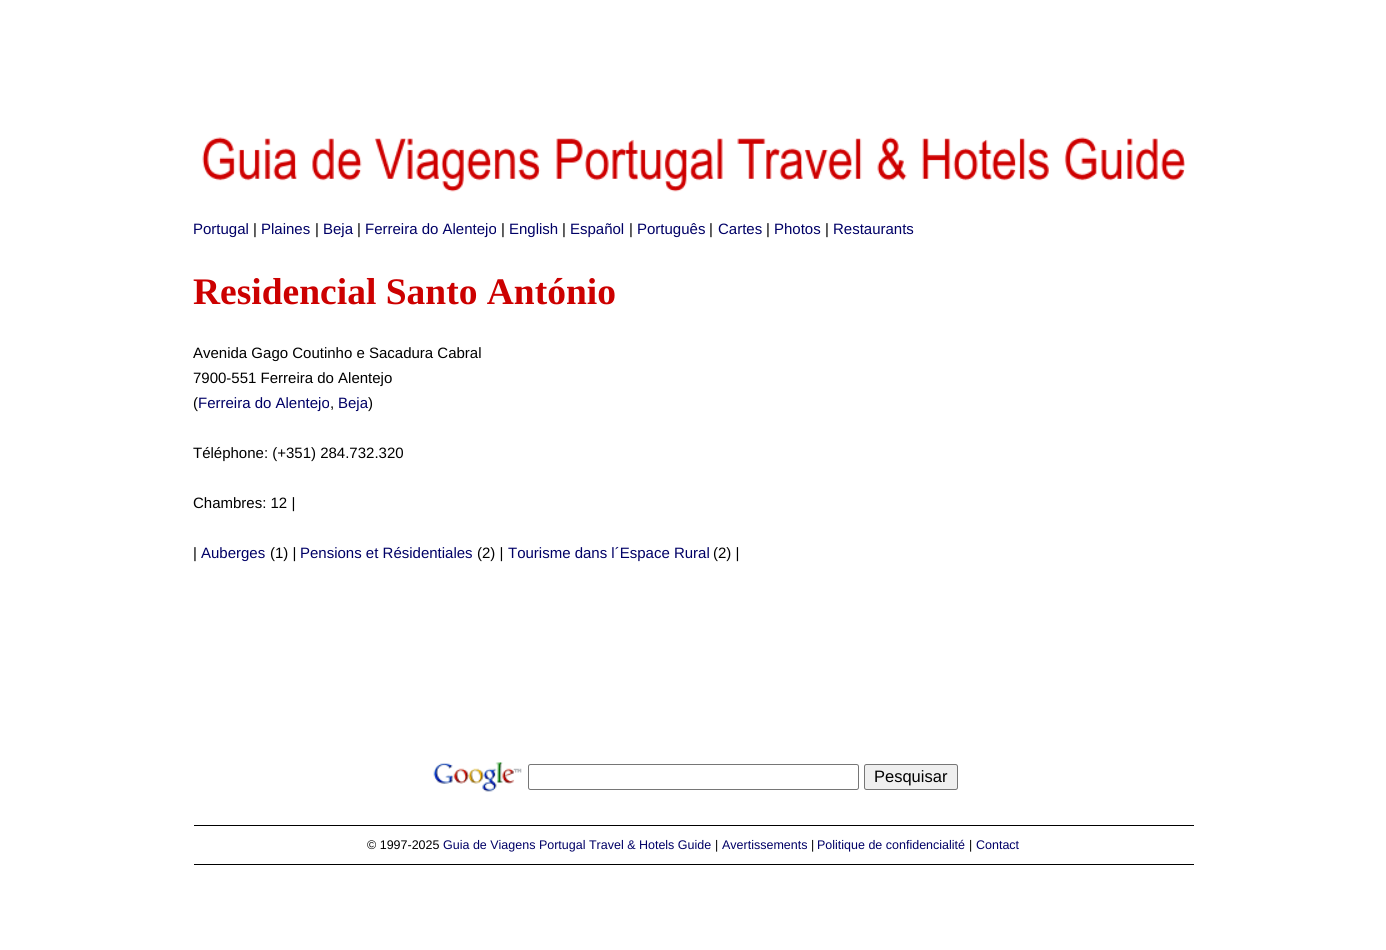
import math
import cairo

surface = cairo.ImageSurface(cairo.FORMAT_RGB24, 1386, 950)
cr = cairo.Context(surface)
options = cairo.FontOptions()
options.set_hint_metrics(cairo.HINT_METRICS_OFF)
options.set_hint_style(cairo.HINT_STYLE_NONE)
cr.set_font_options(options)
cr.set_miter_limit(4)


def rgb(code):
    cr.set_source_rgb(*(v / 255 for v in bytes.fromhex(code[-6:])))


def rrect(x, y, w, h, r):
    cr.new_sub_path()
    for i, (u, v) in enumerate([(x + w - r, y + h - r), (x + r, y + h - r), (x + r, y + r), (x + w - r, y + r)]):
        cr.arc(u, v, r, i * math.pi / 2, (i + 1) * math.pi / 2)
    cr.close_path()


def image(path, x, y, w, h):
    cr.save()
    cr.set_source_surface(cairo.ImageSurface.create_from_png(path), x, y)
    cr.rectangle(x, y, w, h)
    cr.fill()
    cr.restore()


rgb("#ffffff")
cr.paint()
image("img/1.png", 202, 137, 983, 55)
image("img/2.png", 433, 762, 89, 30)
rrect(528.5, 764.5, 330, 25, 2)
rgb("#767676")
cr.set_line_width(1)
cr.stroke()
rgb("#efefef")
rrect(864.5, 764.5, 93, 25, 2)
cr.fill_preserve()
rgb("#767676")
cr.stroke()
rgb("#000000")
cr.rectangle(194, 825, 1000, 1)
cr.fill()
cr.rectangle(194, 864, 1000, 1)
cr.fill()
cr.select_font_face("Liberation Sans")
cr.set_font_size(15)
rgb("#000066")
cr.move_to(193, 234)
cr.show_text("Portugal")
rgb("#000000")
cr.move_to(253, 234)
cr.show_text("|")
rgb("#000066")
cr.move_to(261, 234)
cr.show_text("Plaines")
rgb("#000000")
cr.move_to(315, 234)
cr.show_text("|")
rgb("#000066")
cr.move_to(323, 234)
cr.show_text("Beja")
rgb("#000000")
cr.move_to(357, 234)
cr.show_text("|")
rgb("#000066")
cr.move_to(365, 234)
cr.show_text("Ferreira do Alentejo")
rgb("#000000")
cr.move_to(501, 234)
cr.show_text("|")
rgb("#000066")
cr.move_to(509, 234)
cr.show_text("English")
rgb("#000000")
cr.move_to(562, 234)
cr.show_text("|")
rgb("#000066")
cr.move_to(570, 234)
cr.show_text("Español")
rgb("#000000")
cr.move_to(629, 234)
cr.show_text("|")
rgb("#000066")
cr.move_to(637, 234)
cr.show_text("Português")
rgb("#000000")
cr.move_to(709, 234)
cr.show_text("|")
rgb("#000066")
cr.move_to(718, 234)
cr.show_text("Cartes")
rgb("#000000")
cr.move_to(766, 234)
cr.show_text("|")
rgb("#000066")
cr.move_to(774, 234)
cr.show_text("Photos")
rgb("#000000")
cr.move_to(825, 234)
cr.show_text("|")
rgb("#000066")
cr.move_to(833, 234)
cr.show_text("Restaurants")
cr.select_font_face("Liberation Serif", cairo.FONT_SLANT_NORMAL, cairo.FONT_WEIGHT_BOLD)
cr.set_font_size(37.5)
rgb("#cc0000")
cr.move_to(193, 304)
cr.show_text("Residencial Santo António")
cr.select_font_face("Liberation Sans")
cr.set_font_size(15)
rgb("#000000")
for x, y, s in [
    (193, 358, "Avenida Gago Coutinho e Sacadura Cabral"),
    (193, 383, "7900-551 Ferreira do Alentejo"),
    (193, 408, "("),
]:
    cr.move_to(x, y)
    cr.show_text(s)
rgb("#000066")
cr.move_to(198, 408)
cr.show_text("Ferreira do Alentejo")
rgb("#000000")
cr.move_to(330, 408)
cr.show_text(",")
rgb("#000066")
cr.move_to(338, 408)
cr.show_text("Beja")
rgb("#000000")
for x, y, s in [
    (368, 408, ")"),
    (193, 458, "Téléphone: (+351) 284.732.320"),
    (193, 508, "Chambres: 12 |"),
    (193, 558, "|"),
]:
    cr.move_to(x, y)
    cr.show_text(s)
rgb("#000066")
cr.move_to(201, 558)
cr.show_text("Auberges")
rgb("#000000")
cr.move_to(270, 558)
cr.show_text("(1) |")
rgb("#000066")
cr.move_to(300, 558)
cr.show_text("Pensions et Résidentiales")
rgb("#000000")
cr.move_to(477, 558)
cr.show_text("(2) |")
rgb("#000066")
cr.move_to(508, 558)
cr.show_text("Tourisme dans l´Espace Rural")
rgb("#000000")
cr.move_to(713, 558)
cr.show_text("(2) |")
cr.set_font_size(16.5)
cr.move_to(874, 782)
cr.show_text("Pesquisar")
cr.set_font_size(12.5)
cr.move_to(367, 849)
cr.show_text("© 1997-2025")
rgb("#000066")
cr.move_to(443, 849)
cr.show_text("Guia de Viagens Portugal Travel & Hotels Guide")
rgb("#000000")
cr.move_to(715, 849)
cr.show_text("|")
rgb("#000066")
cr.move_to(722, 849)
cr.show_text("Avertissements")
rgb("#000000")
cr.move_to(811, 849)
cr.show_text("|")
rgb("#000066")
cr.move_to(817, 849)
cr.show_text("Politique de confidencialité")
rgb("#000000")
cr.move_to(969, 849)
cr.show_text("|")
rgb("#000066")
cr.move_to(976, 849)
cr.show_text("Contact")
surface.write_to_png("page.png")
